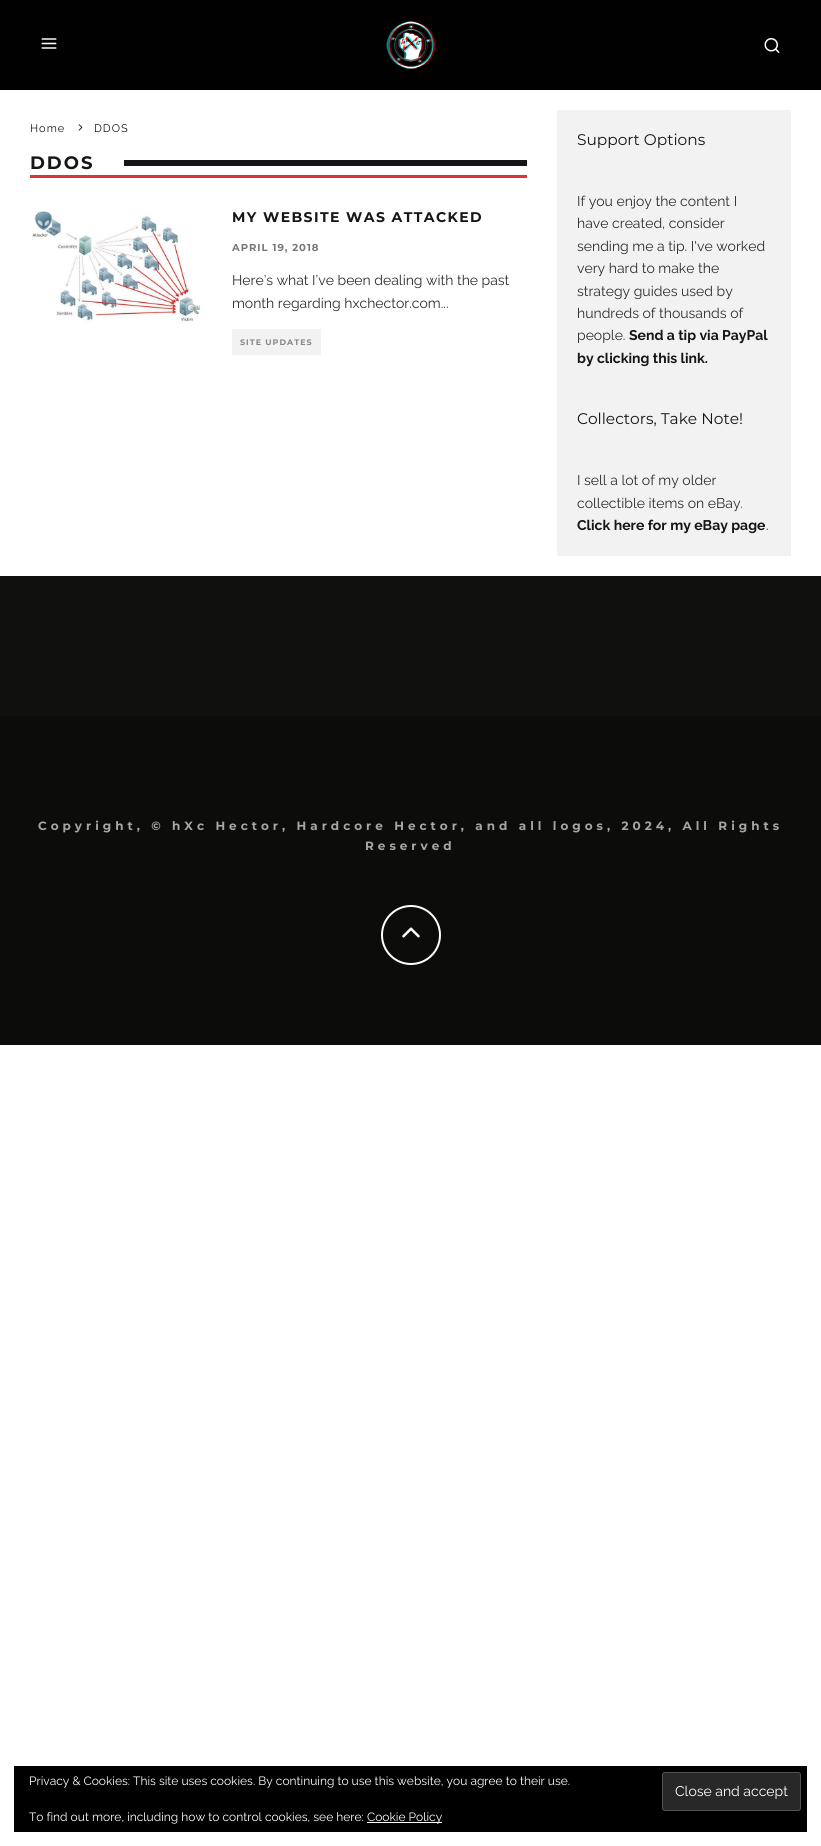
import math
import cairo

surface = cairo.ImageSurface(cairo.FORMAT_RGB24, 821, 1846)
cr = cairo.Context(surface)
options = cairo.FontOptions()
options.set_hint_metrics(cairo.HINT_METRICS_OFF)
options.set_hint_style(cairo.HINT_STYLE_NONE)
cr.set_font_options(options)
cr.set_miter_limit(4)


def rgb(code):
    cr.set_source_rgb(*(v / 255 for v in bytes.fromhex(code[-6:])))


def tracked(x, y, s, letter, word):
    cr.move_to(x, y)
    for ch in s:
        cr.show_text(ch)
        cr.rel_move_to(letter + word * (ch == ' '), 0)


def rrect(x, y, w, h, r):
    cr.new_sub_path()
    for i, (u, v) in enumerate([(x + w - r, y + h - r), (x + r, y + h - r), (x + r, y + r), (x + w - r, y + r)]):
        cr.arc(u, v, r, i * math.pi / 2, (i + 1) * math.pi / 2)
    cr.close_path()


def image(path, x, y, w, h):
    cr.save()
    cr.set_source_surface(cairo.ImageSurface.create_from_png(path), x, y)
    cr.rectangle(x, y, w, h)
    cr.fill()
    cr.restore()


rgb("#ffffff")
cr.paint()
rgb("#010101")
cr.rectangle(0, 0, 821, 90)
cr.fill()
image("img/1.png", 41, 38, 16, 11)
image("img/2.png", 386, 21, 50, 48)
image("img/3.png", 764, 38, 16, 15)
image("img/4.png", 78, 124, 5, 7)
rgb("#dd3333")
cr.rectangle(30, 175, 497, 3)
cr.fill()
rgb("#161616")
cr.rectangle(124, 160, 403, 6)
cr.fill()
image("img/5.png", 30, 208, 172, 117)
for x, y, w, h, color in [
    (232, 329, 89, 26, "#f2f2f2"),
    (557, 110, 234, 446, "#f2f2f2"),
    (0, 576, 821, 140, "#10100f"),
    (0, 716, 821, 329, "#0c0c0b"),
]:
    rgb(color)
    cr.rectangle(x, y, w, h)
    cr.fill()
cr.arc(411, 935, 29, 0, 2 * math.pi)
rgb("#ffffff")
cr.stroke()
image("img/6.png", 402, 927, 18, 11)
rgb("#000000")
cr.rectangle(14, 1766, 793, 66)
cr.fill()
rgb("#282828")
rrect(662.5, 1772.5, 138, 38, 2.5)
cr.fill_preserve()
rgb("#535353")
cr.set_line_width(1)
cr.stroke()
rgb("#ffffff")
cr.rectangle(367, 1822, 75, 1)
cr.fill()
cr.select_font_face("Raleway")
cr.set_font_size(11)
rgb("#161616")
tracked(30, 132, "Home", 1, 0)
tracked(94, 132, "DDOS", 1, 0)
cr.select_font_face("Montserrat", cairo.FONT_SLANT_NORMAL, cairo.FONT_WEIGHT_BOLD)
cr.set_font_size(18)
tracked(30, 169, "DDOS", 2, 0)
cr.set_font_size(14)
tracked(232, 222, "MY WEBSITE WAS ATTACKED", 1.4, 0)
cr.set_font_size(10)
rgb("#777777")
tracked(232, 251, "APRIL 19, 2018", 1, 0)
cr.select_font_face("Raleway")
cr.set_font_size(14)
rgb("#2e2e2e")
cr.move_to(232, 285)
cr.show_text("Here’s what I’ve been dealing with the past")
cr.move_to(232, 308)
cr.show_text("month regarding hxchector.com...")
cr.select_font_face("Montserrat", cairo.FONT_SLANT_NORMAL, cairo.FONT_WEIGHT_BOLD)
cr.set_font_size(8)
rgb("#868686")
tracked(240, 345, "SITE UPDATES", 1, 0)
cr.select_font_face("Montserrat")
cr.set_font_size(15.4)
rgb("#161616")
cr.move_to(577, 145)
cr.show_text("Support Options")
cr.select_font_face("Raleway")
cr.set_font_size(14)
rgb("#2e2e2e")
for x, y, s in [
    (577, 206, "If you enjoy the content I"),
    (577, 228, "have created, consider"),
    (577, 251, "sending me a tip. I've worked"),
    (577, 273, "very hard to make the"),
    (577, 296, "strategy guides used by"),
    (577, 318, "hundreds of thousands of"),
    (577, 340, "people."),
]:
    cr.move_to(x, y)
    cr.show_text(s)
cr.select_font_face("Raleway", cairo.FONT_SLANT_NORMAL, cairo.FONT_WEIGHT_BOLD)
rgb("#161616")
cr.move_to(629, 340)
cr.show_text("Send a tip via PayPal")
cr.move_to(577, 363)
cr.show_text("by clicking this link.")
cr.select_font_face("Montserrat")
cr.set_font_size(15.4)
cr.move_to(577, 424)
cr.show_text("Collectors, Take Note!")
cr.select_font_face("Raleway")
cr.set_font_size(14)
rgb("#2e2e2e")
cr.move_to(577, 485)
cr.show_text("I sell a lot of my older")
cr.move_to(577, 508)
cr.show_text("collectible items on eBay.")
cr.select_font_face("Raleway", cairo.FONT_SLANT_NORMAL, cairo.FONT_WEIGHT_BOLD)
rgb("#161616")
cr.move_to(577, 530)
cr.show_text("Click here for my eBay page")
cr.select_font_face("Raleway")
rgb("#2e2e2e")
cr.move_to(766, 530)
cr.show_text(".")
cr.select_font_face("Montserrat", cairo.FONT_SLANT_NORMAL, cairo.FONT_WEIGHT_BOLD)
cr.set_font_size(12)
rgb("#a6a6a6")
tracked(38, 830, "Copyright, © hXc Hector, Hardcore Hector, and all logos, 2024, All Rights", 4, 0)
tracked(365, 850, "Reserved", 4, 0)
cr.select_font_face("Raleway")
rgb("#ffffff")
cr.move_to(29, 1785)
cr.show_text("Privacy & Cookies: This site uses cookies. By continuing to use this website, you agree to their use.")
cr.set_font_size(14)
cr.move_to(675, 1796)
cr.show_text("Close and accept")
cr.set_font_size(12)
cr.move_to(29, 1821)
cr.show_text("To find out more, including how to control cookies, see here:")
cr.move_to(367, 1821)
cr.show_text("Cookie Policy")
surface.write_to_png("page.png")
